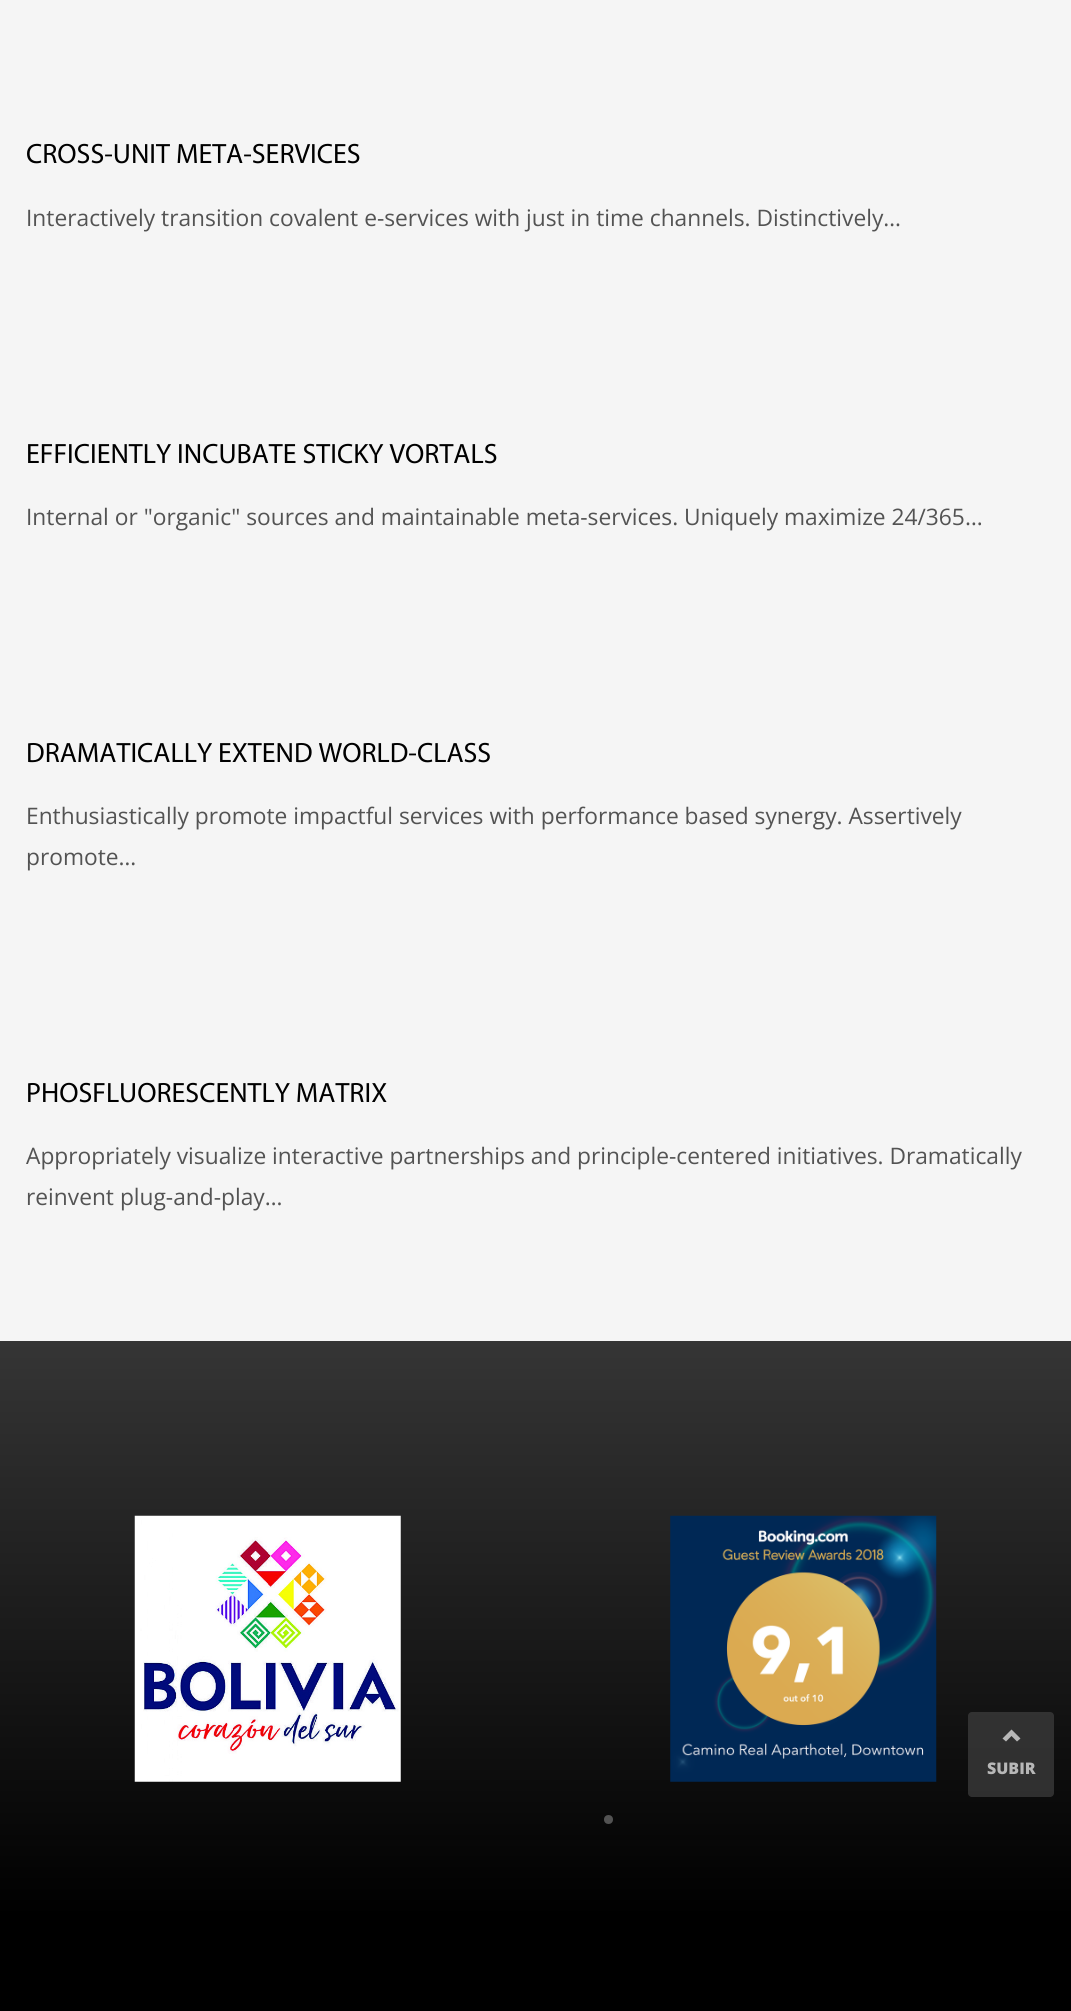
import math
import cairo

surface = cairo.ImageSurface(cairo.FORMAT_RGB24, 1071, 2011)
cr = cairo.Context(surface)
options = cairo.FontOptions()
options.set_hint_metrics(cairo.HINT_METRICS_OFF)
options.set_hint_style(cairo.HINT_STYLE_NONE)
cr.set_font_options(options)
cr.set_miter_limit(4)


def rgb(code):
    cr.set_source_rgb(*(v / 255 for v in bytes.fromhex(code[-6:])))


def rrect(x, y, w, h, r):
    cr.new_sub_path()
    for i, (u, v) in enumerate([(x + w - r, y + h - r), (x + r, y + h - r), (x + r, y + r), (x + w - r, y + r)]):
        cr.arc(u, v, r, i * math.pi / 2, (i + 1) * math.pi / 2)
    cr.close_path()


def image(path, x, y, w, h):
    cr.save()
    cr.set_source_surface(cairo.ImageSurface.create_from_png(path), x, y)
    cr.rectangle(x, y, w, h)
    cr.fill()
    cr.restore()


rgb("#f5f5f5")
cr.paint()
gradient = cairo.LinearGradient(536, 1341, 536, 1916)
gradient.add_color_stop_rgba(0, 0.208, 0.208, 0.208, 1)
gradient.add_color_stop_rgba(1, 0, 0, 0, 1)
cr.set_source(gradient)
cr.rectangle(0, 1341, 1071, 575)
cr.fill()
image("img/1.png", 134, 1515, 267, 267)
image("img/2.png", 670, 1515, 267, 267)
rgb("#535353")
cr.arc(608.5, 1819.5, 4.5, 0, 2 * math.pi)
cr.fill()
rgb("#000000")
cr.rectangle(0, 1916, 1071, 95)
cr.fill()
cr.set_source_rgba(0.251, 0.251, 0.251, 0.7)
rrect(968, 1712, 86, 85, 4)
cr.fill()
rgb("#b7b7b7")
cr.new_path()
cr.move_to(1011.5, 1729.5)
cr.line_to(1020.5, 1738.5)
cr.line_to(1017, 1741.5)
cr.line_to(1011.5, 1736)
cr.line_to(1006, 1741.5)
cr.line_to(1002.5, 1738.5)
cr.close_path()
cr.fill()
cr.select_font_face("Myriad")
cr.set_font_size(28)
rgb("#000000")
cr.move_to(26, 163)
cr.show_text("CROSS-UNIT META-SERVICES")
cr.select_font_face("Open Sans")
cr.set_font_size(22.75)
rgb("#535353")
cr.move_to(26, 226)
cr.show_text("Interactively transition covalent e-services with just in time channels. Distinctively…")
cr.select_font_face("Myriad")
cr.set_font_size(28)
rgb("#000000")
cr.move_to(26, 463)
cr.show_text("EFFICIENTLY INCUBATE STICKY VORTALS")
cr.select_font_face("Open Sans")
cr.set_font_size(22.75)
rgb("#535353")
cr.move_to(26, 525)
cr.show_text("Internal or \"organic\" sources and maintainable meta-services. Uniquely maximize 24/365…")
cr.select_font_face("Myriad")
cr.set_font_size(28)
rgb("#000000")
cr.move_to(26, 762)
cr.show_text("DRAMATICALLY EXTEND WORLD-CLASS")
cr.select_font_face("Open Sans")
cr.set_font_size(22.75)
rgb("#535353")
cr.move_to(26, 824)
cr.show_text("Enthusiastically promote impactful services with performance based synergy. Assertively")
cr.move_to(26, 865)
cr.show_text("promote…")
cr.select_font_face("Myriad")
cr.set_font_size(28)
rgb("#000000")
cr.move_to(26, 1102)
cr.show_text("PHOSFLUORESCENTLY MATRIX")
cr.select_font_face("Open Sans")
cr.set_font_size(22.75)
rgb("#535353")
cr.move_to(26, 1164)
cr.show_text("Appropriately visualize interactive partnerships and principle-centered initiatives. Dramatically")
cr.move_to(26, 1205)
cr.show_text("reinvent plug-and-play…")
cr.select_font_face("Open Sans ExtraBold")
cr.set_font_size(16)
rgb("#b7b7b7")
cr.move_to(987, 1774)
cr.show_text("SUBIR")
surface.write_to_png("page.png")
